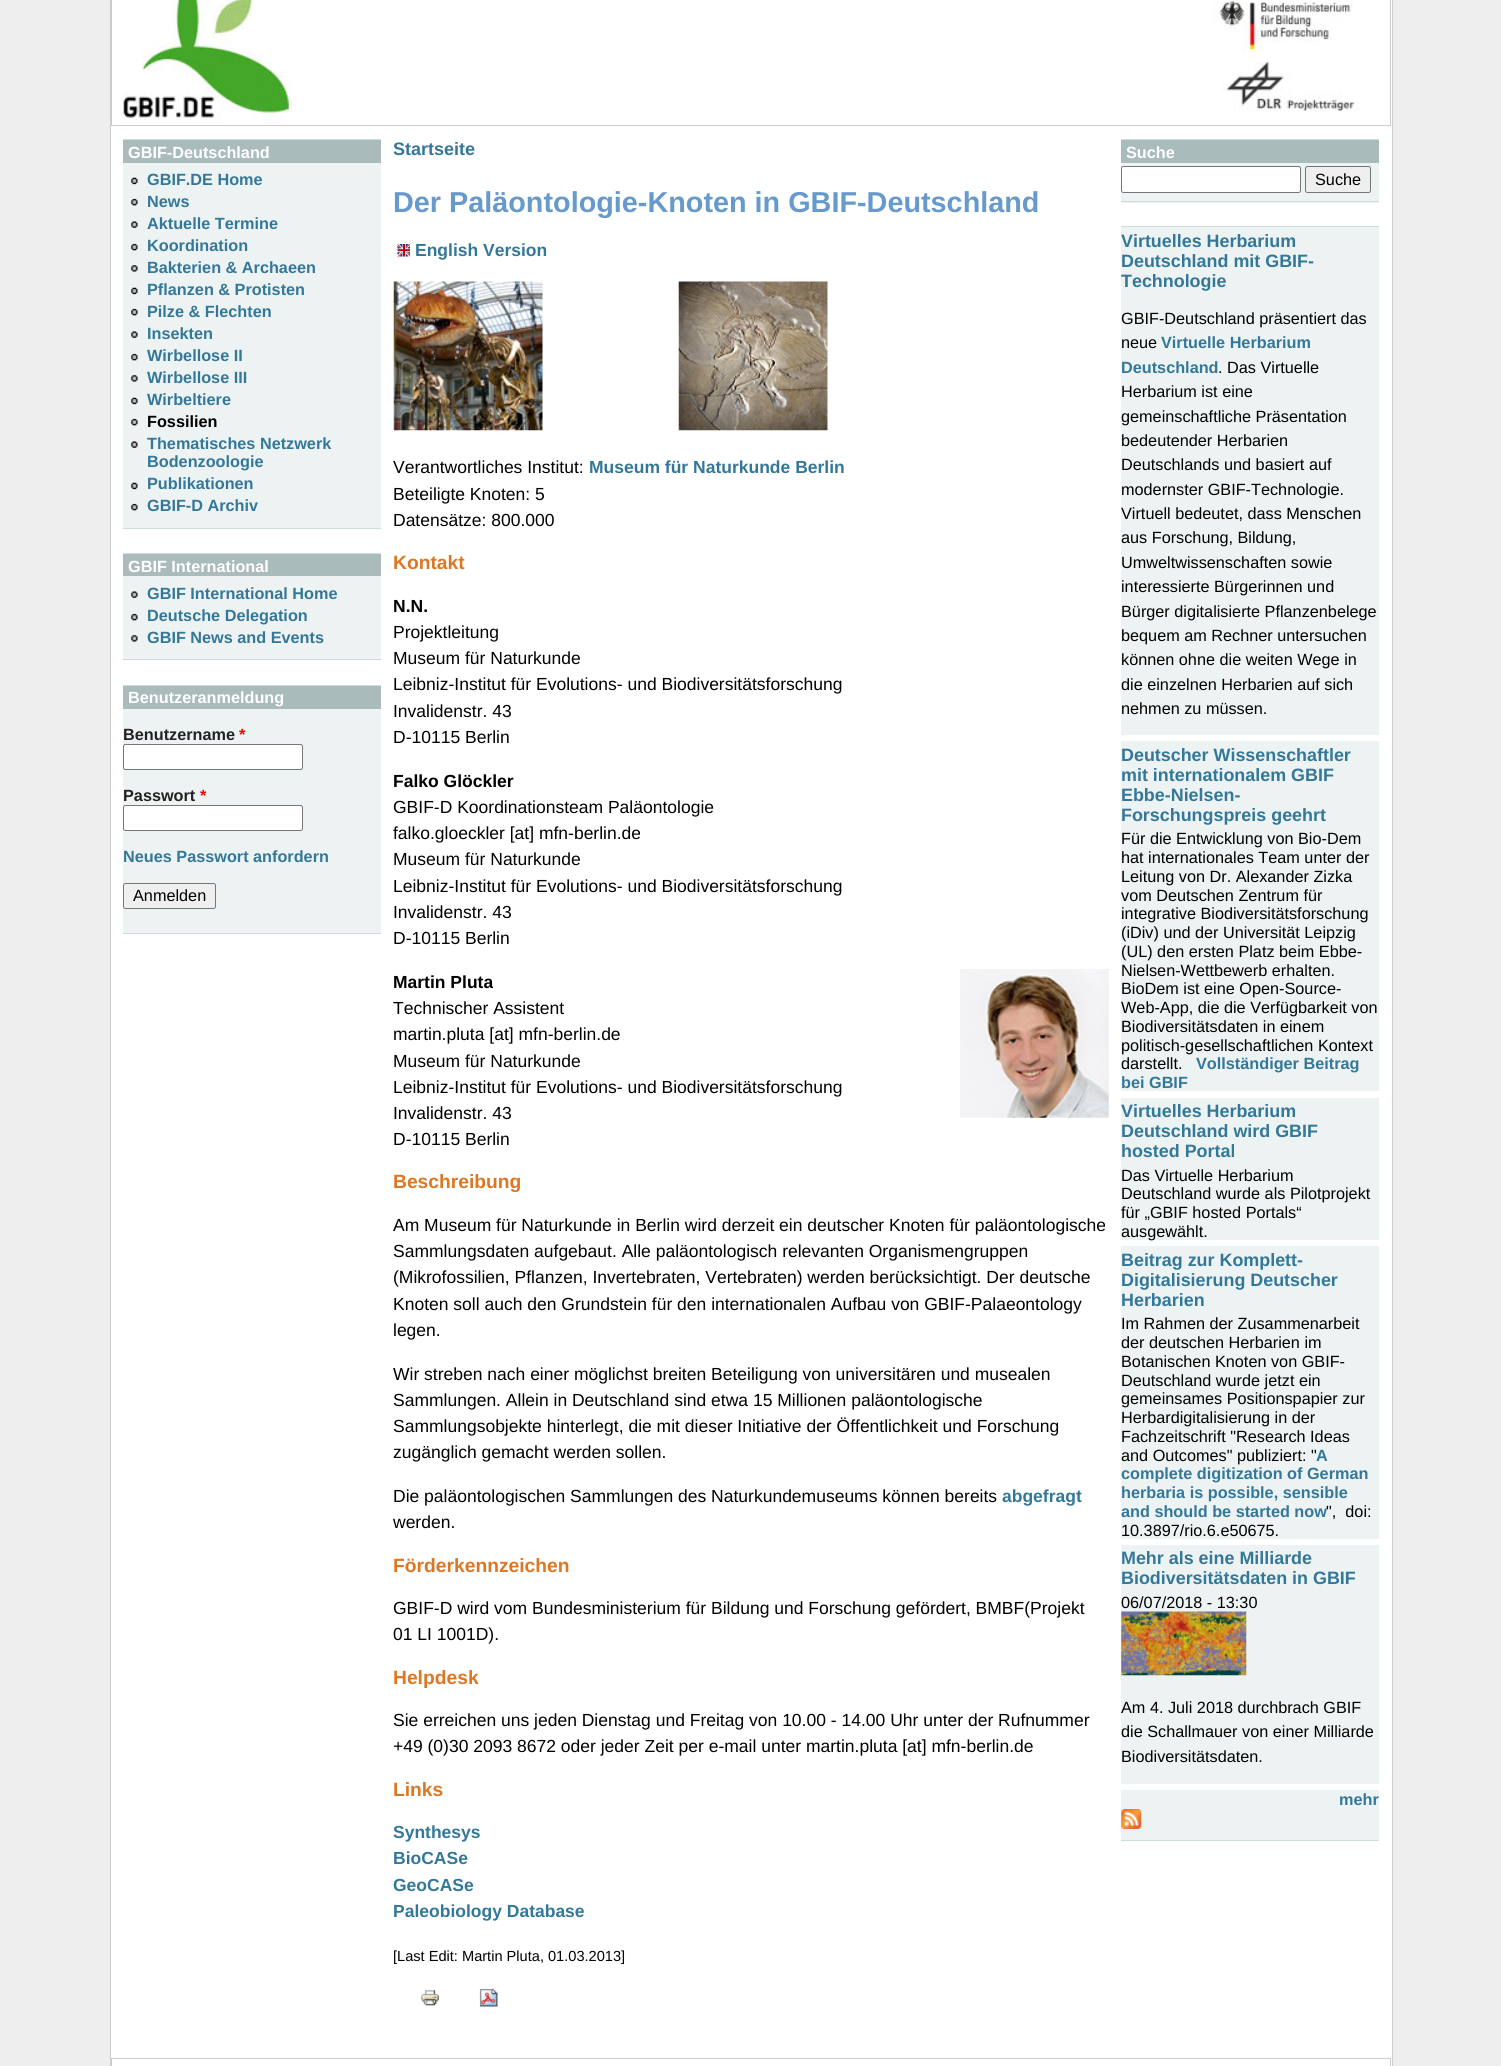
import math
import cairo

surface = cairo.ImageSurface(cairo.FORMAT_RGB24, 1501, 2066)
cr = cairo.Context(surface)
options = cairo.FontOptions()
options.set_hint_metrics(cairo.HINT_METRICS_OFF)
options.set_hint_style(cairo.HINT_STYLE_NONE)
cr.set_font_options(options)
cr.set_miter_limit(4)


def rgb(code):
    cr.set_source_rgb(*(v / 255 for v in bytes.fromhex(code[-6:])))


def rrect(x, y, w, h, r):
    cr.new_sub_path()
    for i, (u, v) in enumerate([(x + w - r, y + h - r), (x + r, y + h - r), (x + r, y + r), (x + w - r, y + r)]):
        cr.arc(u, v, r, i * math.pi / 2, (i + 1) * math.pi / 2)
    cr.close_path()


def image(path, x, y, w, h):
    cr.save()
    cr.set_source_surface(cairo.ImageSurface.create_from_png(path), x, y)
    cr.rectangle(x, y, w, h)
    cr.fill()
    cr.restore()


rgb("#eeeeee")
cr.paint()
rgb("#ffffff")
cr.rectangle(110.5, -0.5, 1282, 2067)
cr.fill_preserve()
rgb("#cccccc")
cr.set_line_width(1)
cr.stroke()
image("img/1.png", 123, 0, 1235, 121)
cr.rectangle(111.5, -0.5, 1279, 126)
cr.stroke()
for x, y, w, h, color in [
    (123, 163, 258, 365, "#edf2f2"),
    (123, 139, 258, 1, "#ccdddd"),
    (123, 528, 258, 1, "#ccdddd"),
    (123, 140, 258, 23, "#aabbbb"),
]:
    rgb(color)
    cr.rectangle(x, y, w, h)
    cr.fill()
image("img/2.png", 131, 177, 7, 8)
image("img/3.png", 131, 198, 7, 8)
image("img/4.png", 131, 221, 7, 7)
image("img/3.png", 131, 243, 7, 8)
image("img/5.png", 131, 265, 7, 7)
image("img/2.png", 131, 287, 7, 8)
image("img/3.png", 131, 308, 7, 8)
image("img/4.png", 131, 331, 7, 7)
image("img/3.png", 131, 353, 7, 8)
image("img/5.png", 131, 375, 7, 7)
image("img/2.png", 131, 397, 7, 8)
image("img/3.png", 131, 418, 7, 8)
image("img/4.png", 131, 441, 7, 7)
image("img/2.png", 131, 482, 7, 8)
image("img/3.png", 131, 503, 7, 8)
for x, y, w, h, color in [
    (123, 576, 258, 83, "#edf2f2"),
    (123, 553, 258, 1, "#ccdddd"),
    (123, 659, 258, 1, "#ccdddd"),
    (123, 554, 258, 22, "#aabbbb"),
]:
    rgb(color)
    cr.rectangle(x, y, w, h)
    cr.fill()
image("img/4.png", 131, 591, 7, 7)
image("img/3.png", 131, 613, 7, 8)
image("img/5.png", 131, 635, 7, 7)
for x, y, w, h, color in [
    (123, 709, 258, 224, "#edf2f2"),
    (123, 685, 258, 1, "#ccdddd"),
    (123, 933, 258, 1, "#ccdddd"),
    (123, 686, 258, 23, "#aabbbb"),
]:
    rgb(color)
    cr.rectangle(x, y, w, h)
    cr.fill()
rgb("#ffffff")
rrect(123.5, 744.5, 179, 25, 2)
cr.fill_preserve()
rgb("#767676")
cr.stroke()
rgb("#ffffff")
rrect(123.5, 805.5, 179, 25, 2)
cr.fill_preserve()
rgb("#767676")
cr.stroke()
rgb("#efefef")
rrect(123.5, 883.5, 92, 25, 2)
cr.fill_preserve()
rgb("#767676")
cr.stroke()
image("img/6.png", 397, 244, 13, 13)
image("img/7.png", 393, 281, 150, 150)
image("img/8.png", 678, 281, 150, 150)
image("img/9.png", 960, 969, 149, 149)
image("img/10.png", 421, 1990, 18, 16)
image("img/11.png", 479, 1988, 19, 19)
for x, y, w, h, color in [
    (1121, 163, 258, 40, "#edf2f2"),
    (1121, 139, 258, 1, "#ccdddd"),
    (1121, 201, 258, 1, "#ccdddd"),
    (1121, 140, 258, 23, "#aabbbb"),
]:
    rgb(color)
    cr.rectangle(x, y, w, h)
    cr.fill()
rgb("#ffffff")
rrect(1121.5, 166.5, 179, 26, 2)
cr.fill_preserve()
rgb("#767676")
cr.stroke()
rgb("#efefef")
rrect(1305.5, 166.5, 65, 26, 2)
cr.fill_preserve()
rgb("#767676")
cr.stroke()
for x, y, w, h, color in [
    (1121, 227, 258, 1613, "#edf2f2"),
    (1121, 226, 258, 1, "#ccdddd"),
    (1121, 1840, 258, 1, "#ccdddd"),
    (1121, 735, 258, 6, "#ffffff"),
    (1121, 1091, 258, 7, "#ffffff"),
    (1121, 1240, 258, 6, "#ffffff"),
    (1121, 1539, 258, 6, "#ffffff"),
    (1121, 1784, 258, 6, "#ffffff"),
]:
    rgb(color)
    cr.rectangle(x, y, w, h)
    cr.fill()
image("img/12.png", 1121, 1611, 126, 65)
image("img/13.png", 1121, 1809, 21, 20)
cr.rectangle(111.5, 2058.5, 1279, 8)
rgb("#cccccc")
cr.stroke()
cr.select_font_face("Liberation Sans", cairo.FONT_SLANT_NORMAL, cairo.FONT_WEIGHT_BOLD)
cr.set_font_size(16.25)
rgb("#ffffff")
cr.move_to(128, 158)
cr.show_text("GBIF-Deutschland")
rgb("#337799")
for x, y, s in [
    (147, 185, "GBIF.DE Home"),
    (147, 207, "News"),
    (147, 229, "Aktuelle Termine"),
    (147, 251, "Koordination"),
    (147, 273, "Bakterien & Archaeen"),
    (147, 295, "Pflanzen & Protisten"),
    (147, 317, "Pilze & Flechten"),
    (147, 339, "Insekten"),
    (147, 361, "Wirbellose II"),
    (147, 383, "Wirbellose III"),
    (147, 405, "Wirbeltiere"),
]:
    cr.move_to(x, y)
    cr.show_text(s)
rgb("#000000")
cr.move_to(147, 427)
cr.show_text("Fossilien")
rgb("#337799")
for x, y, s in [
    (147, 449, "Thematisches Netzwerk"),
    (147, 467, "Bodenzoologie"),
    (147, 489, "Publikationen"),
    (147, 511, "GBIF-D Archiv"),
]:
    cr.move_to(x, y)
    cr.show_text(s)
rgb("#ffffff")
cr.move_to(128, 572)
cr.show_text("GBIF International")
rgb("#337799")
for x, y, s in [
    (147, 599, "GBIF International Home"),
    (147, 621, "Deutsche Delegation"),
    (147, 643, "GBIF News and Events"),
]:
    cr.move_to(x, y)
    cr.show_text(s)
rgb("#ffffff")
cr.move_to(128, 703)
cr.show_text("Benutzeranmeldung")
rgb("#222222")
cr.move_to(123, 740)
cr.show_text("Benutzername")
rgb("#ff0000")
cr.move_to(239, 740)
cr.show_text("*")
rgb("#222222")
cr.move_to(123, 801)
cr.show_text("Passwort")
rgb("#ff0000")
cr.move_to(200, 801)
cr.show_text("*")
rgb("#337799")
cr.move_to(123, 862)
cr.show_text("Neues Passwort anfordern")
cr.select_font_face("Liberation Sans")
rgb("#000000")
cr.move_to(133, 901)
cr.show_text("Anmelden")
cr.select_font_face("Liberation Sans", cairo.FONT_SLANT_NORMAL, cairo.FONT_WEIGHT_BOLD)
cr.set_font_size(18)
rgb("#337799")
cr.move_to(393, 155)
cr.show_text("Startseite")
cr.set_font_size(28.8)
rgb("#6699cc")
cr.move_to(393, 212)
cr.show_text("Der Paläontologie-Knoten in GBIF-Deutschland")
cr.set_font_size(17.5)
rgb("#337799")
cr.move_to(415, 256)
cr.show_text("English Version")
cr.select_font_face("Liberation Sans")
rgb("#000000")
cr.move_to(393, 473)
cr.show_text("Verantwortliches Institut:")
cr.select_font_face("Liberation Sans", cairo.FONT_SLANT_NORMAL, cairo.FONT_WEIGHT_BOLD)
rgb("#337799")
cr.move_to(589, 473)
cr.show_text("Museum für Naturkunde Berlin")
cr.select_font_face("Liberation Sans")
rgb("#000000")
cr.move_to(393, 500)
cr.show_text("Beteiligte Knoten: 5")
cr.move_to(393, 526)
cr.show_text("Datensätze: 800.000")
cr.select_font_face("Liberation Sans", cairo.FONT_SLANT_NORMAL, cairo.FONT_WEIGHT_BOLD)
cr.set_font_size(19.25)
rgb("#dd7722")
cr.move_to(393, 569)
cr.show_text("Kontakt")
cr.set_font_size(17.5)
rgb("#000000")
cr.move_to(393, 612)
cr.show_text("N.N.")
cr.select_font_face("Liberation Sans")
for x, y, s in [
    (393, 638, "Projektleitung"),
    (393, 664, "Museum für Naturkunde"),
    (393, 690, "Leibniz-Institut für Evolutions- und Biodiversitätsforschung"),
    (393, 717, "Invalidenstr. 43"),
    (393, 743, "D-10115 Berlin"),
]:
    cr.move_to(x, y)
    cr.show_text(s)
cr.select_font_face("Liberation Sans", cairo.FONT_SLANT_NORMAL, cairo.FONT_WEIGHT_BOLD)
cr.move_to(393, 787)
cr.show_text("Falko Glöckler")
cr.select_font_face("Liberation Sans")
for x, y, s in [
    (393, 813, "GBIF-D Koordinationsteam Paläontologie"),
    (393, 839, "falko.gloeckler [at] mfn-berlin.de"),
    (393, 865, "Museum für Naturkunde"),
    (393, 892, "Leibniz-Institut für Evolutions- und Biodiversitätsforschung"),
    (393, 918, "Invalidenstr. 43"),
    (393, 944, "D-10115 Berlin"),
]:
    cr.move_to(x, y)
    cr.show_text(s)
cr.select_font_face("Liberation Sans", cairo.FONT_SLANT_NORMAL, cairo.FONT_WEIGHT_BOLD)
cr.move_to(393, 988)
cr.show_text("Martin Pluta")
cr.select_font_face("Liberation Sans")
for x, y, s in [
    (393, 1014, "Technischer Assistent"),
    (393, 1040, "martin.pluta [at] mfn-berlin.de"),
    (393, 1067, "Museum für Naturkunde"),
    (393, 1093, "Leibniz-Institut für Evolutions- und Biodiversitätsforschung"),
    (393, 1119, "Invalidenstr. 43"),
    (393, 1145, "D-10115 Berlin"),
]:
    cr.move_to(x, y)
    cr.show_text(s)
cr.select_font_face("Liberation Sans", cairo.FONT_SLANT_NORMAL, cairo.FONT_WEIGHT_BOLD)
cr.set_font_size(19.25)
rgb("#dd7722")
cr.move_to(393, 1188)
cr.show_text("Beschreibung")
cr.select_font_face("Liberation Sans")
cr.set_font_size(17.5)
rgb("#000000")
for x, y, s in [
    (393, 1231, "Am Museum für Naturkunde in Berlin wird derzeit ein deutscher Knoten für paläontologische"),
    (393, 1257, "Sammlungsdaten aufgebaut. Alle paläontologisch relevanten Organismengruppen"),
    (393, 1283, "(Mikrofossilien, Pflanzen, Invertebraten, Vertebraten) werden berücksichtigt. Der deutsche"),
    (393, 1310, "Knoten soll auch den Grundstein für den internationalen Aufbau von GBIF-Palaeontology"),
    (393, 1336, "legen."),
    (393, 1380, "Wir streben nach einer möglichst breiten Beteiligung von universitären und musealen"),
    (393, 1406, "Sammlungen. Allein in Deutschland sind etwa 15 Millionen paläontologische"),
    (393, 1432, "Sammlungsobjekte hinterlegt, die mit dieser Initiative der Öffentlichkeit und Forschung"),
    (393, 1458, "zugänglich gemacht werden sollen."),
    (393, 1502, "Die paläontologischen Sammlungen des Naturkundemuseums können bereits"),
]:
    cr.move_to(x, y)
    cr.show_text(s)
cr.select_font_face("Liberation Sans", cairo.FONT_SLANT_NORMAL, cairo.FONT_WEIGHT_BOLD)
rgb("#337799")
cr.move_to(1002, 1502)
cr.show_text("abgefragt")
cr.select_font_face("Liberation Sans")
rgb("#000000")
cr.move_to(393, 1528)
cr.show_text("werden.")
cr.select_font_face("Liberation Sans", cairo.FONT_SLANT_NORMAL, cairo.FONT_WEIGHT_BOLD)
cr.set_font_size(19.25)
rgb("#dd7722")
cr.move_to(393, 1572)
cr.show_text("Förderkennzeichen")
cr.select_font_face("Liberation Sans")
cr.set_font_size(17.5)
rgb("#000000")
cr.move_to(393, 1614)
cr.show_text("GBIF-D wird vom Bundesministerium für Bildung und Forschung gefördert, BMBF(Projekt")
cr.move_to(393, 1640)
cr.show_text("01 LI 1001D).")
cr.select_font_face("Liberation Sans", cairo.FONT_SLANT_NORMAL, cairo.FONT_WEIGHT_BOLD)
cr.set_font_size(19.25)
rgb("#dd7722")
cr.move_to(393, 1684)
cr.show_text("Helpdesk")
cr.select_font_face("Liberation Sans")
cr.set_font_size(17.5)
rgb("#000000")
cr.move_to(393, 1726)
cr.show_text("Sie erreichen uns jeden Dienstag und Freitag von 10.00 - 14.00 Uhr unter der Rufnummer")
cr.move_to(393, 1752)
cr.show_text("+49 (0)30 2093 8672 oder jeder Zeit per e-mail unter martin.pluta [at] mfn-berlin.de")
cr.select_font_face("Liberation Sans", cairo.FONT_SLANT_NORMAL, cairo.FONT_WEIGHT_BOLD)
cr.set_font_size(19.25)
rgb("#dd7722")
cr.move_to(393, 1796)
cr.show_text("Links")
cr.set_font_size(17.5)
rgb("#337799")
for x, y, s in [
    (393, 1838, "Synthesys"),
    (393, 1864, "BioCASe"),
    (393, 1891, "GeoCASe"),
    (393, 1917, "Paleobiology Database"),
]:
    cr.move_to(x, y)
    cr.show_text(s)
cr.select_font_face("Liberation Sans")
cr.set_font_size(14.6)
rgb("#000000")
cr.move_to(393, 1961)
cr.show_text("[Last Edit: Martin Pluta, 01.03.2013]")
cr.select_font_face("Liberation Sans", cairo.FONT_SLANT_NORMAL, cairo.FONT_WEIGHT_BOLD)
cr.set_font_size(16.25)
rgb("#ffffff")
cr.move_to(1126, 158)
cr.show_text("Suche")
cr.select_font_face("Liberation Sans")
rgb("#000000")
cr.move_to(1315, 185)
cr.show_text("Suche")
cr.select_font_face("Liberation Sans", cairo.FONT_SLANT_NORMAL, cairo.FONT_WEIGHT_BOLD)
cr.set_font_size(17.9)
rgb("#337799")
for x, y, s in [
    (1121, 247, "Virtuelles Herbarium"),
    (1121, 267, "Deutschland mit GBIF-"),
    (1121, 287, "Technologie"),
]:
    cr.move_to(x, y)
    cr.show_text(s)
cr.select_font_face("Liberation Sans")
cr.set_font_size(16.25)
rgb("#000000")
cr.move_to(1121, 324)
cr.show_text("GBIF-Deutschland präsentiert das")
cr.move_to(1121, 348)
cr.show_text("neue")
cr.select_font_face("Liberation Sans", cairo.FONT_SLANT_NORMAL, cairo.FONT_WEIGHT_BOLD)
rgb("#337799")
cr.move_to(1161, 348)
cr.show_text("Virtuelle Herbarium")
cr.move_to(1121, 373)
cr.show_text("Deutschland")
cr.select_font_face("Liberation Sans")
rgb("#000000")
for x, y, s in [
    (1218, 373, ". Das Virtuelle"),
    (1121, 397, "Herbarium ist eine"),
    (1121, 422, "gemeinschaftliche Präsentation"),
    (1121, 446, "bedeutender Herbarien"),
    (1121, 470, "Deutschlands und basiert auf"),
    (1121, 495, "modernster GBIF-Technologie."),
    (1121, 519, "Virtuell bedeutet, dass Menschen"),
    (1121, 543, "aus Forschung, Bildung,"),
    (1121, 568, "Umweltwissenschaften sowie"),
    (1121, 592, "interessierte Bürgerinnen und"),
    (1121, 617, "Bürger digitalisierte Pflanzenbelege"),
    (1121, 641, "bequem am Rechner untersuchen"),
    (1121, 665, "können ohne die weiten Wege in"),
    (1121, 690, "die einzelnen Herbarien auf sich"),
    (1121, 714, "nehmen zu müssen."),
]:
    cr.move_to(x, y)
    cr.show_text(s)
cr.select_font_face("Liberation Sans", cairo.FONT_SLANT_NORMAL, cairo.FONT_WEIGHT_BOLD)
cr.set_font_size(17.9)
rgb("#337799")
for x, y, s in [
    (1121, 761, "Deutscher Wissenschaftler"),
    (1121, 781, "mit internationalem GBIF"),
    (1121, 801, "Ebbe-Nielsen-"),
    (1121, 821, "Forschungspreis geehrt"),
]:
    cr.move_to(x, y)
    cr.show_text(s)
cr.select_font_face("Liberation Sans")
cr.set_font_size(16.25)
rgb("#000000")
for x, y, s in [
    (1121, 844, "Für die Entwicklung von Bio-Dem"),
    (1121, 863, "hat internationales Team unter der"),
    (1121, 882, "Leitung von Dr. Alexander Zizka"),
    (1121, 901, "vom Deutschen Zentrum für"),
    (1121, 919, "integrative Biodiversitätsforschung"),
    (1121, 938, "(iDiv) und der Universität Leipzig"),
    (1121, 957, "(UL) den ersten Platz beim Ebbe-"),
    (1121, 976, "Nielsen-Wettbewerb erhalten."),
    (1121, 994, "BioDem ist eine Open-Source-"),
    (1121, 1013, "Web-App, die die Verfügbarkeit von"),
    (1121, 1032, "Biodiversitätsdaten in einem"),
    (1121, 1051, "politisch-gesellschaftlichen Kontext"),
    (1121, 1069, "darstellt."),
]:
    cr.move_to(x, y)
    cr.show_text(s)
cr.select_font_face("Liberation Sans", cairo.FONT_SLANT_NORMAL, cairo.FONT_WEIGHT_BOLD)
rgb("#337799")
cr.move_to(1196, 1069)
cr.show_text("Vollständiger Beitrag")
cr.move_to(1121, 1088)
cr.show_text("bei GBIF")
cr.set_font_size(17.9)
for x, y, s in [
    (1121, 1117, "Virtuelles Herbarium"),
    (1121, 1137, "Deutschland wird GBIF"),
    (1121, 1157, "hosted Portal"),
]:
    cr.move_to(x, y)
    cr.show_text(s)
cr.select_font_face("Liberation Sans")
cr.set_font_size(16.25)
rgb("#000000")
for x, y, s in [
    (1121, 1181, "Das Virtuelle Herbarium"),
    (1121, 1199, "Deutschland wurde als Pilotprojekt"),
    (1121, 1218, "für „GBIF hosted Portals“"),
    (1121, 1237, "ausgewählt."),
]:
    cr.move_to(x, y)
    cr.show_text(s)
cr.select_font_face("Liberation Sans", cairo.FONT_SLANT_NORMAL, cairo.FONT_WEIGHT_BOLD)
cr.set_font_size(17.9)
rgb("#337799")
for x, y, s in [
    (1121, 1266, "Beitrag zur Komplett-"),
    (1121, 1286, "Digitalisierung Deutscher"),
    (1121, 1306, "Herbarien"),
]:
    cr.move_to(x, y)
    cr.show_text(s)
cr.select_font_face("Liberation Sans")
cr.set_font_size(16.25)
rgb("#000000")
for x, y, s in [
    (1121, 1329, "Im Rahmen der Zusammenarbeit"),
    (1121, 1348, "der deutschen Herbarien im"),
    (1121, 1367, "Botanischen Knoten von GBIF-"),
    (1121, 1386, "Deutschland wurde jetzt ein"),
    (1121, 1404, "gemeinsames Positionspapier zur"),
    (1121, 1423, "Herbardigitalisierung in der"),
    (1121, 1442, "Fachzeitschrift \"Research Ideas"),
    (1121, 1461, "and Outcomes\" publiziert: \""),
]:
    cr.move_to(x, y)
    cr.show_text(s)
cr.select_font_face("Liberation Sans", cairo.FONT_SLANT_NORMAL, cairo.FONT_WEIGHT_BOLD)
rgb("#337799")
for x, y, s in [
    (1316, 1461, "A"),
    (1121, 1479, "complete digitization of German"),
    (1121, 1498, "herbaria is possible, sensible"),
    (1121, 1517, "and should be started now"),
]:
    cr.move_to(x, y)
    cr.show_text(s)
cr.select_font_face("Liberation Sans")
rgb("#000000")
cr.move_to(1326, 1517)
cr.show_text("\",  doi:")
cr.move_to(1121, 1536)
cr.show_text("10.3897/rio.6.e50675.")
cr.select_font_face("Liberation Sans", cairo.FONT_SLANT_NORMAL, cairo.FONT_WEIGHT_BOLD)
cr.set_font_size(17.9)
rgb("#337799")
cr.move_to(1121, 1564)
cr.show_text("Mehr als eine Milliarde")
cr.move_to(1121, 1584)
cr.show_text("Biodiversitätsdaten in GBIF")
cr.select_font_face("Liberation Sans")
cr.set_font_size(16.25)
rgb("#000000")
for x, y, s in [
    (1121, 1608, "06/07/2018 - 13:30"),
    (1121, 1713, "Am 4. Juli 2018 durchbrach GBIF"),
    (1121, 1737, "die Schallmauer von einer Milliarde"),
    (1121, 1762, "Biodiversitätsdaten."),
]:
    cr.move_to(x, y)
    cr.show_text(s)
cr.select_font_face("Liberation Sans", cairo.FONT_SLANT_NORMAL, cairo.FONT_WEIGHT_BOLD)
rgb("#337799")
cr.move_to(1339, 1805)
cr.show_text("mehr")
surface.write_to_png("page.png")
